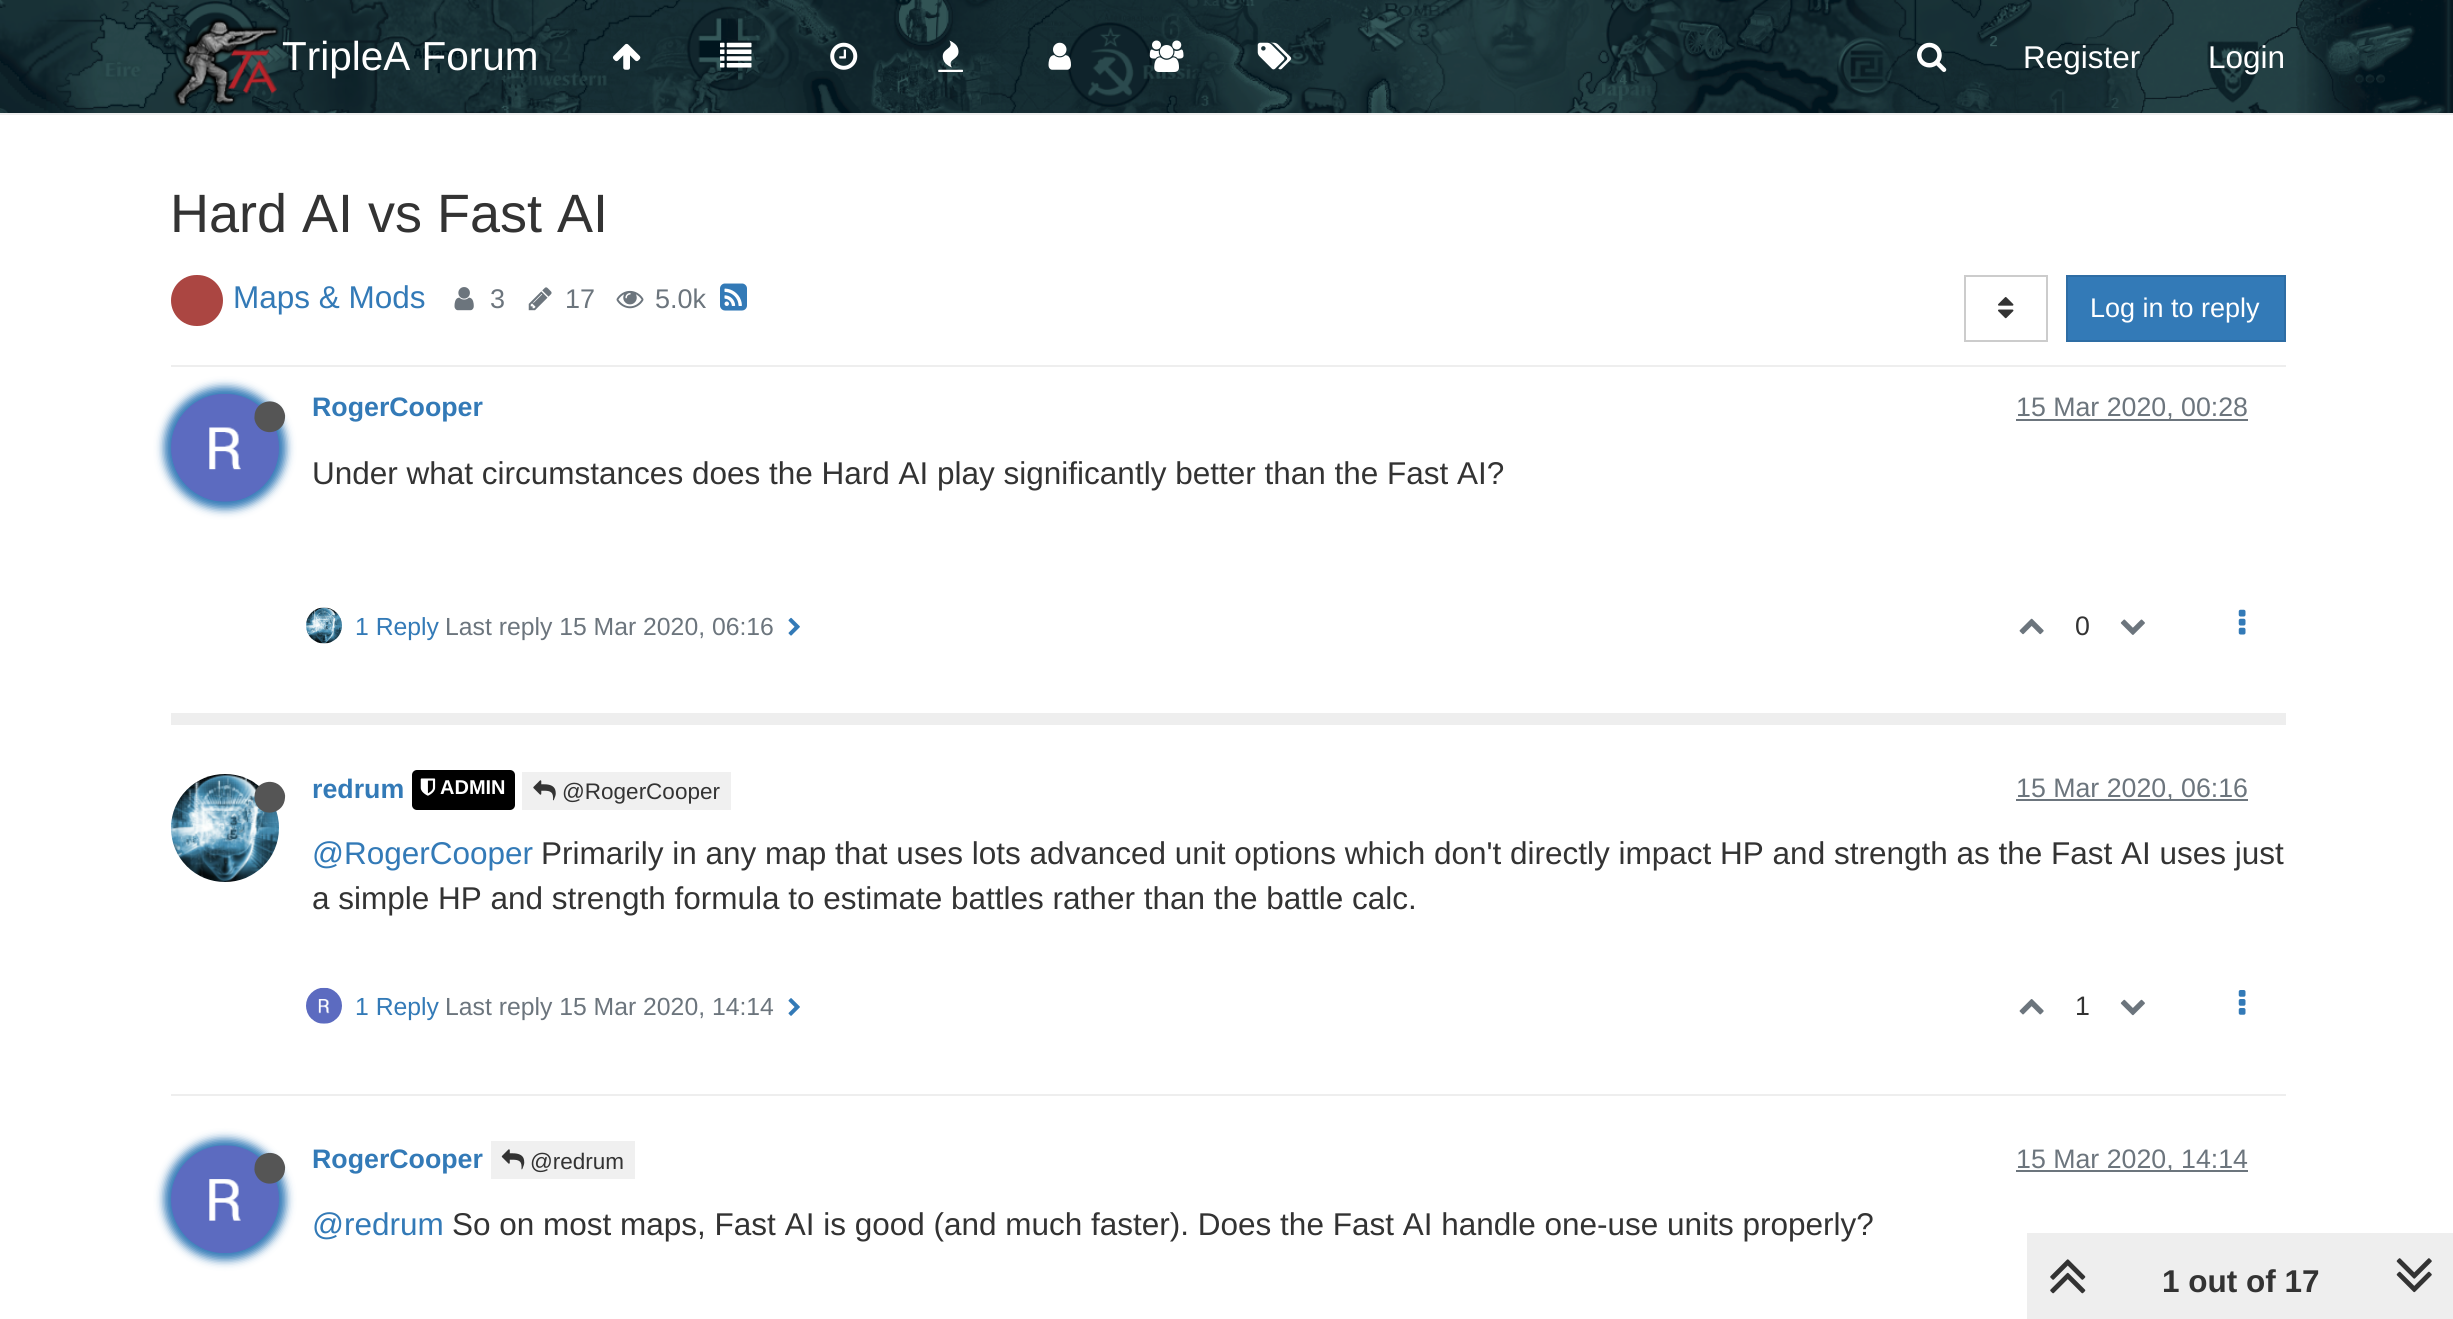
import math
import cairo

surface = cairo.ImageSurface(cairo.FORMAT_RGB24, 2453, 1319)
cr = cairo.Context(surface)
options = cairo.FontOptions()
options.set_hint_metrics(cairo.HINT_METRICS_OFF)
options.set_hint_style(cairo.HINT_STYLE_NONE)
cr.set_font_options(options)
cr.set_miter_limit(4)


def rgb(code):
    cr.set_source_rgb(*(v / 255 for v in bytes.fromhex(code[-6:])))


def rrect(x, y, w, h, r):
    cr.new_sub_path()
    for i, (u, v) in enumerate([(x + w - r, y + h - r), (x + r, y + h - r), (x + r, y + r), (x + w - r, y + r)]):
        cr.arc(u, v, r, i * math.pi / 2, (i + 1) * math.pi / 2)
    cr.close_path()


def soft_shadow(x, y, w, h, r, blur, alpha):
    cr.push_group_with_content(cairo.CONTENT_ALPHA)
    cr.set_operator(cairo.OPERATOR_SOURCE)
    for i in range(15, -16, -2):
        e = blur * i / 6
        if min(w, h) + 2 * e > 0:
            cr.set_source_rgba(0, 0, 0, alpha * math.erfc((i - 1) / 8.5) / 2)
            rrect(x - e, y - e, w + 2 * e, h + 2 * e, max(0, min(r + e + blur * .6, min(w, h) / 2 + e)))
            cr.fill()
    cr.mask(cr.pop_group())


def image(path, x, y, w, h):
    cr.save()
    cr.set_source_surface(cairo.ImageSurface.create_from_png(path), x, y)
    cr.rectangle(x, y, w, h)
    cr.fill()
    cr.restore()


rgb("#ffffff")
cr.paint()
image("img/1.png", 0, 0, 2453, 113)
rgb("#eeeeee")
cr.rectangle(0, 113, 2453, 2)
cr.fill()
image("img/2.png", 173, 18, 107, 90)
image("img/3.png", 612, 43, 29, 27)
image("img/4.png", 720, 42, 32, 26)
image("img/5.png", 830, 42, 28, 28)
image("img/6.png", 938, 40, 25, 32)
image("img/7.png", 1048, 42, 23, 28)
image("img/8.png", 1149, 40, 35, 32)
image("img/9.png", 1257, 42, 35, 28)
image("img/10.png", 1917, 42, 30, 30)
cr.rectangle(171, 365, 2115, 2)
cr.fill()
rgb("#ab4642")
rrect(171, 275, 52, 51, 25.5)
cr.fill()
image("img/11.png", 454, 287, 20, 24)
image("img/12.png", 528, 287, 24, 24)
image("img/13.png", 616, 290, 28, 19)
image("img/14.png", 720, 283, 27, 28)
cr.rectangle(1965, 276, 82, 65)
rgb("#cccccc")
cr.stroke()
image("img/15.png", 1998, 297, 16, 22)
rgb("#337ab7")
cr.rectangle(2067, 276, 218, 65)
cr.fill_preserve()
rgb("#2e6da4")
cr.stroke()
rgb("#eeeeee")
cr.rectangle(171, 713, 2115, 12)
cr.fill()
rgb("#337ab7")
soft_shadow(164, 387, 122, 122, 61, 4.5, 1)
image("img/16.png", 171, 394, 108, 108)
rgb("#555555")
cr.new_path()
cr.move_to(283, 409)
cr.curve_to(284.5, 412, 285.5, 415, 285, 418)
cr.curve_to(284, 433, 264, 437.5, 256.5, 424.5)
cr.curve_to(255, 422, 254, 419, 254.5, 416)
cr.curve_to(255, 400.5, 275.5, 396, 283, 409)
cr.close_path()
cr.fill()
rgb("#6c757d")
cr.rectangle(2016, 419, 232, 2)
cr.fill()
image("img/17.png", 306, 607, 36, 37)
image("img/18.png", 788, 617, 12, 19)
image("img/19.png", 2019, 618, 25, 17)
image("img/20.png", 2120, 619, 25, 16)
image("img/21.png", 2238, 609, 8, 26)
rgb("#eeeeee")
cr.rectangle(171, 1094, 2115, 2)
cr.fill()
image("img/22.png", 171, 774, 108, 108)
rgb("#555555")
cr.new_path()
cr.move_to(283, 789.5)
cr.curve_to(284.5, 792, 285.5, 795, 285, 798)
cr.curve_to(284, 813.5, 264, 818, 256.5, 805)
cr.curve_to(255, 802, 254, 799, 254.5, 796)
cr.curve_to(255, 781, 275.5, 776.5, 283, 789.5)
cr.close_path()
cr.fill()
rgb("#000000")
rrect(412, 770, 103, 40, 5)
cr.fill()
image("img/23.png", 420, 778, 16, 18)
rgb("#f0f0f0")
cr.rectangle(522, 772, 209, 38)
cr.fill()
image("img/24.png", 533, 780, 23, 21)
rgb("#6c757d")
cr.rectangle(2016, 799, 232, 2)
cr.fill()
image("img/25.png", 306, 987, 36, 37)
image("img/26.png", 788, 998, 12, 18)
image("img/27.png", 2019, 999, 25, 16)
image("img/28.png", 2120, 999, 25, 17)
image("img/29.png", 2238, 990, 8, 25)
rgb("#337ab7")
soft_shadow(164, 1139, 122, 121, 60.5, 4.5, 1)
image("img/30.png", 171, 1145, 108, 108)
rgb("#555555")
cr.new_path()
cr.move_to(283, 1160.5)
cr.curve_to(284.5, 1163.5, 285.5, 1166.5, 285, 1169.5)
cr.curve_to(284, 1184.5, 264, 1189, 256.5, 1176)
cr.curve_to(255, 1173.5, 254, 1170.5, 254.5, 1167.5)
cr.curve_to(255, 1152, 275.5, 1147.5, 283, 1160.5)
cr.close_path()
cr.fill()
rgb("#f0f0f0")
cr.rectangle(491, 1141, 144, 38)
cr.fill()
image("img/31.png", 501, 1149, 24, 21)
rgb("#6c757d")
cr.rectangle(2016, 1170, 232, 2)
cr.fill()
rgb("#eeeeee")
cr.rectangle(2027, 1233, 426, 86)
cr.fill()
image("img/32.png", 2050, 1259, 36, 35)
image("img/33.png", 2396, 1258, 36, 35)
cr.select_font_face("Liberation Sans")
cr.set_font_size(40.5)
rgb("#ffffff")
cr.move_to(282, 70)
cr.show_text("TripleA Forum")
cr.set_font_size(31.5)
cr.move_to(2023, 68)
cr.show_text("Register")
cr.move_to(2208, 68)
cr.show_text("Login")
cr.set_font_size(54)
rgb("#333333")
cr.move_to(170, 232)
cr.show_text("Hard AI vs Fast AI")
cr.set_font_size(31.5)
rgb("#337ab7")
cr.move_to(233, 308)
cr.show_text("Maps & Mods")
cr.set_font_size(27)
rgb("#6c757d")
for x, y, s in [
    (490, 308, "3"),
    (565, 308, "17"),
    (655, 308, "5.0k"),
]:
    cr.move_to(x, y)
    cr.show_text(s)
rgb("#ffffff")
cr.move_to(2090, 317)
cr.show_text("Log in to reply")
cr.select_font_face("Liberation Sans", cairo.FONT_SLANT_NORMAL, cairo.FONT_WEIGHT_BOLD)
cr.set_font_size(26.75)
rgb("#337ab7")
cr.move_to(312, 416)
cr.show_text("RogerCooper")
cr.select_font_face("Liberation Sans")
rgb("#6c757d")
cr.move_to(2016, 416)
cr.show_text("15 Mar 2020, 00:28")
cr.set_font_size(31.5)
rgb("#333333")
cr.move_to(312, 484)
cr.show_text("Under what circumstances does the Hard AI play significantly better than the Fast AI?")
cr.set_font_size(24.75)
rgb("#337ab7")
cr.move_to(355, 635)
cr.show_text("1 Reply")
rgb("#6c757d")
cr.move_to(445, 635)
cr.show_text("Last reply 15 Mar 2020, 06:16")
cr.set_font_size(26.75)
rgb("#333333")
cr.move_to(2075, 635)
cr.show_text("0")
cr.select_font_face("Liberation Sans", cairo.FONT_SLANT_NORMAL, cairo.FONT_WEIGHT_BOLD)
rgb("#337ab7")
cr.move_to(312, 798)
cr.show_text("redrum")
cr.set_font_size(20)
rgb("#ffffff")
cr.move_to(440, 794)
cr.show_text("ADMIN")
cr.select_font_face("Liberation Sans")
cr.set_font_size(22.5)
rgb("#333333")
cr.move_to(562, 799)
cr.show_text("@RogerCooper")
cr.set_font_size(26.75)
rgb("#6c757d")
cr.move_to(2016, 797)
cr.show_text("15 Mar 2020, 06:16")
cr.set_font_size(31.5)
rgb("#337ab7")
cr.move_to(312, 864)
cr.show_text("@RogerCooper")
rgb("#333333")
cr.move_to(541, 864)
cr.show_text("Primarily in any map that uses lots advanced unit options which don't directly impact HP and strength as the Fast AI uses just")
cr.move_to(312, 909)
cr.show_text("a simple HP and strength formula to estimate battles rather than the battle calc.")
cr.set_font_size(24.75)
rgb("#337ab7")
cr.move_to(355, 1015)
cr.show_text("1 Reply")
rgb("#6c757d")
cr.move_to(445, 1015)
cr.show_text("Last reply 15 Mar 2020, 14:14")
cr.set_font_size(26.75)
rgb("#333333")
cr.move_to(2075, 1015)
cr.show_text("1")
cr.select_font_face("Liberation Sans", cairo.FONT_SLANT_NORMAL, cairo.FONT_WEIGHT_BOLD)
rgb("#337ab7")
cr.move_to(312, 1168)
cr.show_text("RogerCooper")
cr.select_font_face("Liberation Sans")
cr.set_font_size(22.5)
rgb("#333333")
cr.move_to(530, 1169)
cr.show_text("@redrum")
cr.set_font_size(26.75)
rgb("#6c757d")
cr.move_to(2016, 1168)
cr.show_text("15 Mar 2020, 14:14")
cr.set_font_size(31.5)
rgb("#337ab7")
cr.move_to(312, 1235)
cr.show_text("@redrum")
rgb("#333333")
cr.move_to(452, 1235)
cr.show_text("So on most maps, Fast AI is good (and much faster). Does the Fast AI handle one-use units properly?")
cr.select_font_face("Liberation Sans", cairo.FONT_SLANT_NORMAL, cairo.FONT_WEIGHT_BOLD)
cr.move_to(2162, 1292)
cr.show_text("1 out of 17")
surface.write_to_png("page.png")
